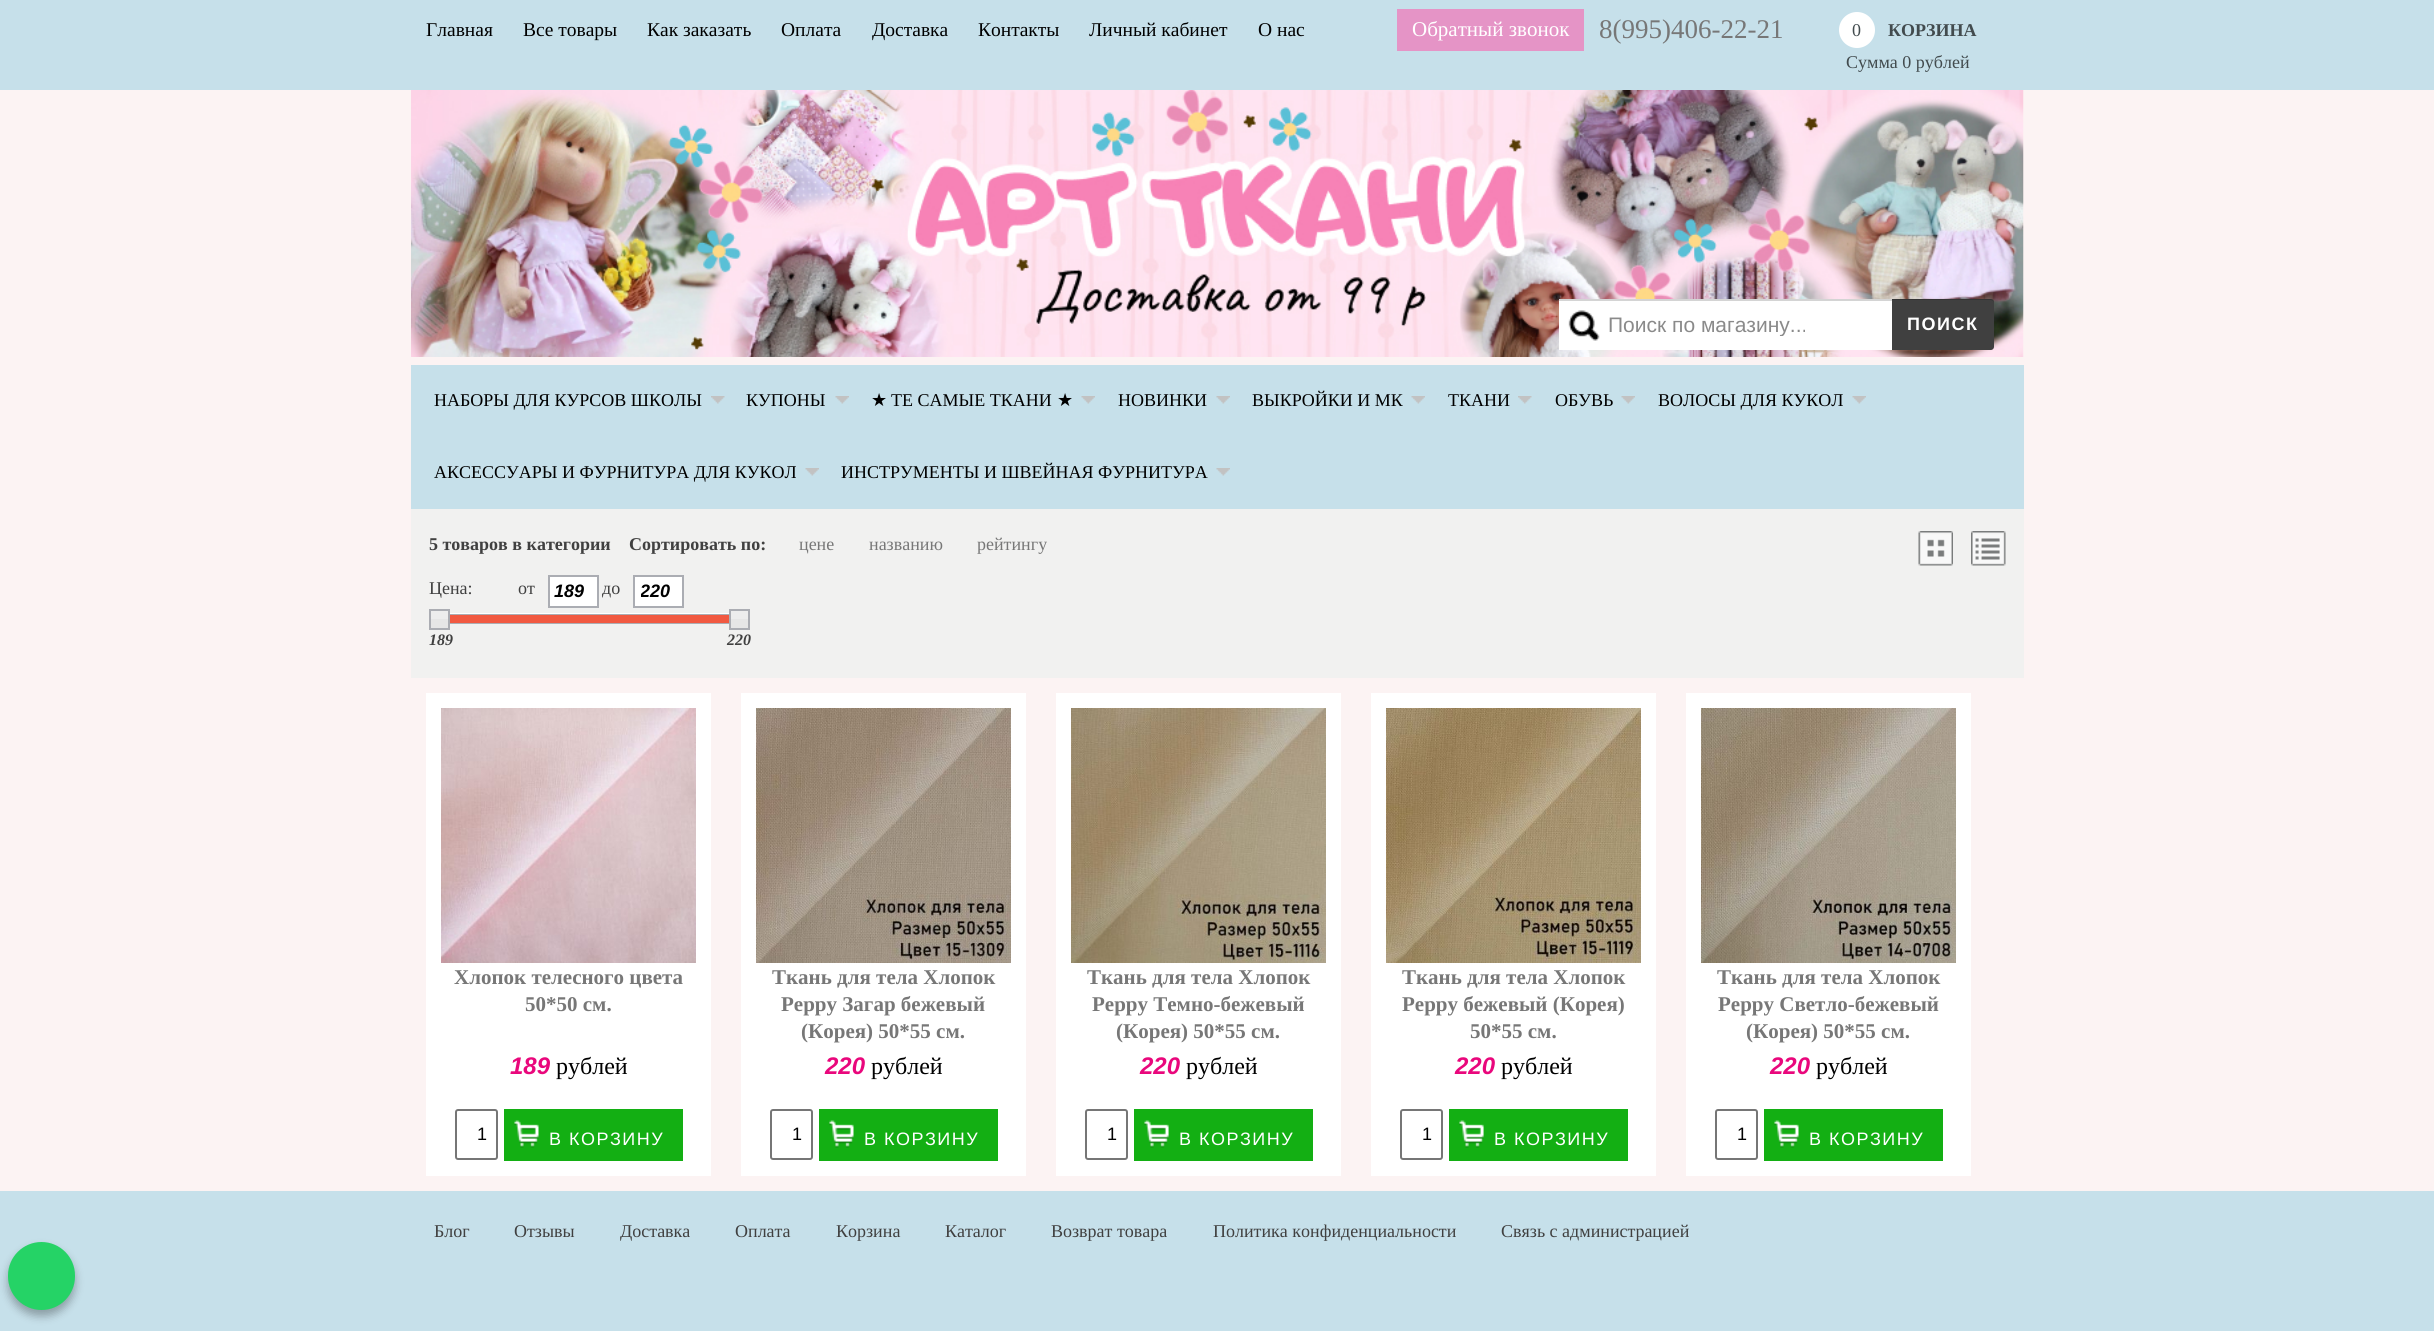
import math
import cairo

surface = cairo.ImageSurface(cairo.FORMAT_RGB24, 2434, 1331)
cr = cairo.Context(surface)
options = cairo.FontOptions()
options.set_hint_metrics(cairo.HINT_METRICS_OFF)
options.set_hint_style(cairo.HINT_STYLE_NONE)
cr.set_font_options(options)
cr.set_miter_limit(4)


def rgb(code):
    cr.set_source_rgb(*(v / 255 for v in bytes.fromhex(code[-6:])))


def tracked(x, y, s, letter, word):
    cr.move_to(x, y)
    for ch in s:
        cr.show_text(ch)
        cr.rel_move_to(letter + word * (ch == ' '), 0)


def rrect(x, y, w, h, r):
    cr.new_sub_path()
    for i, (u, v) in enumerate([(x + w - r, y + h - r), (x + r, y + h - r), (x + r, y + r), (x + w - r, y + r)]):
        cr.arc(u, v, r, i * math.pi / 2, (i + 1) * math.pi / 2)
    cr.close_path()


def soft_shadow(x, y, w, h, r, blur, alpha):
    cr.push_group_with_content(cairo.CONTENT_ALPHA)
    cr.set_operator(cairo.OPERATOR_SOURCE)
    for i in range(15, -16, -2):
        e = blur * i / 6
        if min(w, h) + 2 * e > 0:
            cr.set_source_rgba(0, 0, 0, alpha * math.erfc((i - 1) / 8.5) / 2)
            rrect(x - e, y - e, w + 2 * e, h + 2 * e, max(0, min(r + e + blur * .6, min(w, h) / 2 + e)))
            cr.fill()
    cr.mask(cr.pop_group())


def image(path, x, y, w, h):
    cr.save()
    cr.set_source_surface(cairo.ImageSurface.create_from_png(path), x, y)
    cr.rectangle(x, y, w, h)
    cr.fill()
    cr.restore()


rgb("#fcf3f3")
cr.paint()
rgb("#c6e0ea")
cr.rectangle(0, 0, 2434, 90)
cr.fill()
rgb("#e594c6")
cr.rectangle(1397, 9, 187, 42)
cr.fill()
rgb("#ffffff")
cr.arc(1857, 30, 18, 0, 2 * math.pi)
cr.fill()
image("img/1.png", 411, 90, 1613, 267)
cr.rectangle(1559, 301, 333, 49)
cr.fill()
image("img/2.png", 1568, 310, 32, 31)
rgb("#d4d4d4")
cr.rectangle(1559, 299, 333, 2)
cr.fill()
rgb("#404040")
cr.new_path()
cr.move_to(1892, 299)
cr.line_to(1991, 299)
cr.curve_to(1992.5, 299, 1994, 300.5, 1994, 302)
cr.line_to(1994, 347)
cr.curve_to(1994, 348.5, 1992.5, 350, 1991, 350)
cr.line_to(1892, 350)
cr.close_path()
cr.fill()
cr.set_source_rgba(0, 0, 0, 0.17)
cr.new_path()
cr.move_to(1892, 300)
cr.line_to(1990, 300)
cr.curve_to(1992, 300, 1994, 301, 1994, 303)
cr.line_to(1994, 302)
cr.curve_to(1994, 300, 1993, 299, 1991, 299)
cr.line_to(1892, 299)
cr.close_path()
cr.fill()
rgb("#c6e0ea")
cr.rectangle(411, 365, 1613, 144)
cr.fill()
image("img/3.png", 711, 396, 14, 8)
image("img/4.png", 835, 396, 14, 8)
image("img/4.png", 1081, 396, 14, 8)
image("img/4.png", 1216, 396, 14, 8)
image("img/5.png", 1411, 396, 14, 8)
image("img/6.png", 1518, 396, 14, 8)
image("img/4.png", 1621, 396, 14, 8)
image("img/4.png", 1852, 396, 14, 8)
image("img/4.png", 805, 468, 14, 8)
image("img/4.png", 1216, 468, 14, 8)
rgb("#f1f1f0")
cr.rectangle(411, 509, 1613, 169)
cr.fill()
image("img/7.png", 1918, 531, 35, 35)
image("img/8.png", 1971, 531, 35, 35)
rgb("#ffffff")
cr.rectangle(549, 576, 49, 31)
cr.fill_preserve()
rgb("#abadb3")
cr.stroke()
rgb("#ffffff")
cr.rectangle(634, 576, 49, 31)
cr.fill_preserve()
rgb("#abadb3")
cr.stroke()
rgb("#ffffff")
cr.rectangle(450, 613, 279, 1)
cr.fill()
cr.rectangle(441, 615, 301, 8)
rgb("#abadb3")
cr.stroke()
rgb("#e6e6e6")
cr.rectangle(431, 619, 17, 9)
cr.fill()
rgb("#ededed")
cr.rectangle(431, 611, 17, 8)
cr.fill()
cr.rectangle(430, 610, 19, 19)
rgb("#abadb3")
cr.stroke()
for x, y, w, h, color in [
    (450, 615, 279, 8, "#f15941"),
    (731, 619, 17, 9, "#e6e6e6"),
    (731, 611, 17, 8, "#ededed"),
]:
    rgb(color)
    cr.rectangle(x, y, w, h)
    cr.fill()
cr.rectangle(730, 610, 19, 19)
rgb("#abadb3")
cr.stroke()
rgb("#ffffff")
cr.rectangle(426, 693, 285, 483)
cr.fill()
image("img/9.png", 441, 708, 255, 255)
rrect(456, 1110, 41, 49, 2)
rgb("#767676")
cr.stroke()
rgb("#13af13")
cr.rectangle(504, 1109, 179, 52)
cr.fill()
image("img/10.png", 514, 1120, 25, 28)
rgb("#ffffff")
cr.rectangle(741, 693, 285, 483)
cr.fill()
image("img/11.png", 756, 708, 255, 255)
rrect(771, 1110, 41, 49, 2)
rgb("#767676")
cr.stroke()
rgb("#13af13")
cr.rectangle(819, 1109, 179, 52)
cr.fill()
image("img/12.png", 829, 1120, 25, 28)
rgb("#ffffff")
cr.rectangle(1056, 693, 285, 483)
cr.fill()
image("img/13.png", 1071, 708, 255, 255)
rrect(1086, 1110, 41, 49, 2)
rgb("#767676")
cr.stroke()
rgb("#13af13")
cr.rectangle(1134, 1109, 179, 52)
cr.fill()
image("img/14.png", 1144, 1120, 25, 28)
rgb("#ffffff")
cr.rectangle(1371, 693, 285, 483)
cr.fill()
image("img/15.png", 1386, 708, 255, 255)
rrect(1401, 1110, 41, 49, 2)
rgb("#767676")
cr.stroke()
rgb("#13af13")
cr.rectangle(1449, 1109, 179, 52)
cr.fill()
image("img/14.png", 1459, 1120, 25, 28)
rgb("#ffffff")
cr.rectangle(1686, 693, 285, 483)
cr.fill()
image("img/16.png", 1701, 708, 255, 255)
rrect(1716, 1110, 41, 49, 2)
rgb("#767676")
cr.stroke()
rgb("#13af13")
cr.rectangle(1764, 1109, 179, 52)
cr.fill()
image("img/12.png", 1774, 1120, 25, 28)
rgb("#c6e0ea")
cr.rectangle(0, 1191, 2434, 140)
cr.fill()
rgb("#000000")
soft_shadow(8, 1248, 67, 68, 33.5, 4.5, 0.3)
rgb("#25d366")
rrect(8, 1242, 67, 68, 33.5)
cr.fill()
cr.select_font_face("Liberation Serif")
cr.set_font_size(19.5)
rgb("#000000")
for x, y, s in [
    (426, 36, "Главная"),
    (523, 36, "Все товары"),
    (647, 36, "Как заказать"),
    (781, 36, "Оплата"),
    (872, 36, "Доставка"),
    (978, 36, "Контакты"),
    (1089, 36, "Личный кабинет"),
    (1258, 36, "О нас"),
]:
    cr.move_to(x, y)
    cr.show_text(s)
cr.set_font_size(21)
rgb("#ffffff")
cr.move_to(1412, 36)
cr.show_text("Обратный звонок")
cr.set_font_size(27)
rgb("#777777")
cr.move_to(1599, 38)
cr.show_text("8(995)406-22-21")
cr.set_font_size(18)
rgb("#424b4e")
cr.move_to(1852, 36)
cr.show_text("0")
cr.select_font_face("Liberation Serif", cairo.FONT_SLANT_NORMAL, cairo.FONT_WEIGHT_BOLD)
cr.move_to(1888, 36)
cr.show_text("КОРЗИНА")
cr.select_font_face("Liberation Serif")
cr.move_to(1846, 68)
cr.show_text("Сумма 0 рублей")
cr.save()
cr.rectangle(1608, 312, 359, 24)
cr.clip()
cr.select_font_face("Liberation Sans")
cr.set_font_size(21)
rgb("#8a8a8a")
cr.move_to(1608, 332)
cr.show_text("Поиск по магазину...")
cr.restore()
cr.select_font_face("Liberation Sans", cairo.FONT_SLANT_NORMAL, cairo.FONT_WEIGHT_BOLD)
rgb("#ffffff")
tracked(1907, 330, "ПОИСК", 1.5, 0)
cr.select_font_face("Liberation Serif")
rgb("#000000")
cr.move_to(434, 406)
cr.show_text("НАБОРЫ ДЛЯ КУРСОВ ШКОЛЫ")
cr.move_to(746, 406)
cr.show_text("КУПОНЫ")
cr.select_font_face("DejaVu Sans")
cr.move_to(871, 406)
cr.show_text("★")
cr.select_font_face("Liberation Serif")
cr.move_to(891, 406)
cr.show_text("ТЕ САМЫЕ ТКАНИ")
cr.select_font_face("DejaVu Sans")
cr.move_to(1057, 406)
cr.show_text("★")
cr.select_font_face("Liberation Serif")
for x, y, s in [
    (1118, 406, "НОВИНКИ"),
    (1252, 406, "ВЫКРОЙКИ И МК"),
    (1448, 406, "ТКАНИ"),
    (1555, 406, "ОБУВЬ"),
    (1658, 406, "ВОЛОСЫ ДЛЯ КУКОЛ"),
    (434, 478, "АКСЕССУАРЫ И ФУРНИТУРА ДЛЯ КУКОЛ"),
    (841, 478, "ИНСТРУМЕНТЫ И ШВЕЙНАЯ ФУРНИТУРА"),
]:
    cr.move_to(x, y)
    cr.show_text(s)
cr.select_font_face("Liberation Serif", cairo.FONT_SLANT_NORMAL, cairo.FONT_WEIGHT_BOLD)
rgb("#404040")
cr.move_to(429, 550)
cr.show_text("5 товаров в категории")
cr.move_to(629, 550)
cr.show_text("Сортировать по:")
cr.select_font_face("Liberation Serif")
rgb("#777777")
for x, y, s in [
    (799, 550, "цене"),
    (869, 550, "названию"),
    (977, 550, "рейтингу"),
]:
    cr.move_to(x, y)
    cr.show_text(s)
rgb("#404040")
cr.move_to(429, 594)
cr.show_text("Цена:")
cr.move_to(518, 594)
cr.show_text("от")
cr.select_font_face("Liberation Sans", cairo.FONT_SLANT_ITALIC, cairo.FONT_WEIGHT_BOLD)
rgb("#000000")
cr.move_to(554, 597)
cr.show_text("189")
cr.select_font_face("Liberation Serif")
rgb("#404040")
cr.move_to(602, 594)
cr.show_text("до")
cr.save()
cr.rectangle(641, 581, 36, 21)
cr.clip()
cr.select_font_face("Liberation Sans", cairo.FONT_SLANT_ITALIC, cairo.FONT_WEIGHT_BOLD)
rgb("#000000")
cr.move_to(640, 597)
cr.show_text("220")
cr.restore()
cr.select_font_face("Liberation Serif", cairo.FONT_SLANT_ITALIC, cairo.FONT_WEIGHT_BOLD)
cr.set_font_size(16)
cr.move_to(429, 645)
cr.show_text("189")
cr.move_to(727, 645)
cr.show_text("220")
cr.select_font_face("Liberation Serif", cairo.FONT_SLANT_NORMAL, cairo.FONT_WEIGHT_BOLD)
cr.set_font_size(21)
rgb("#777777")
cr.move_to(454, 984)
cr.show_text("Хлопок телесного цвета")
cr.move_to(525, 1011)
cr.show_text("50*50 см.")
cr.select_font_face("Liberation Sans", cairo.FONT_SLANT_ITALIC, cairo.FONT_WEIGHT_BOLD)
cr.set_font_size(24)
rgb("#e9077c")
cr.move_to(510, 1074)
cr.show_text("189")
cr.select_font_face("Liberation Serif")
rgb("#000000")
cr.move_to(556, 1074)
cr.show_text("рублей")
cr.select_font_face("Liberation Sans")
cr.set_font_size(18)
cr.move_to(477, 1140)
cr.show_text("1")
rgb("#ffffff")
tracked(549, 1145, "В КОРЗИНУ", 1.5, 0)
cr.select_font_face("Liberation Serif", cairo.FONT_SLANT_NORMAL, cairo.FONT_WEIGHT_BOLD)
cr.set_font_size(21)
rgb("#777777")
for x, y, s in [
    (772, 984, "Ткань для тела Хлопок"),
    (781, 1011, "Peppy Загар бежевый"),
    (801, 1038, "(Корея) 50*55 см."),
]:
    cr.move_to(x, y)
    cr.show_text(s)
cr.select_font_face("Liberation Sans", cairo.FONT_SLANT_ITALIC, cairo.FONT_WEIGHT_BOLD)
cr.set_font_size(24)
rgb("#e9077c")
cr.move_to(825, 1074)
cr.show_text("220")
cr.select_font_face("Liberation Serif")
rgb("#000000")
cr.move_to(871, 1074)
cr.show_text("рублей")
cr.select_font_face("Liberation Sans")
cr.set_font_size(18)
cr.move_to(792, 1140)
cr.show_text("1")
rgb("#ffffff")
tracked(864, 1145, "В КОРЗИНУ", 1.5, 0)
cr.select_font_face("Liberation Serif", cairo.FONT_SLANT_NORMAL, cairo.FONT_WEIGHT_BOLD)
cr.set_font_size(21)
rgb("#777777")
for x, y, s in [
    (1087, 984, "Ткань для тела Хлопок"),
    (1092, 1011, "Peppy Темно-бежевый"),
    (1116, 1038, "(Корея) 50*55 см."),
]:
    cr.move_to(x, y)
    cr.show_text(s)
cr.select_font_face("Liberation Sans", cairo.FONT_SLANT_ITALIC, cairo.FONT_WEIGHT_BOLD)
cr.set_font_size(24)
rgb("#e9077c")
cr.move_to(1140, 1074)
cr.show_text("220")
cr.select_font_face("Liberation Serif")
rgb("#000000")
cr.move_to(1186, 1074)
cr.show_text("рублей")
cr.select_font_face("Liberation Sans")
cr.set_font_size(18)
cr.move_to(1107, 1140)
cr.show_text("1")
rgb("#ffffff")
tracked(1179, 1145, "В КОРЗИНУ", 1.5, 0)
cr.select_font_face("Liberation Serif", cairo.FONT_SLANT_NORMAL, cairo.FONT_WEIGHT_BOLD)
cr.set_font_size(21)
rgb("#777777")
for x, y, s in [
    (1402, 984, "Ткань для тела Хлопок"),
    (1402, 1011, "Peppy бежевый (Корея)"),
    (1470, 1038, "50*55 см."),
]:
    cr.move_to(x, y)
    cr.show_text(s)
cr.select_font_face("Liberation Sans", cairo.FONT_SLANT_ITALIC, cairo.FONT_WEIGHT_BOLD)
cr.set_font_size(24)
rgb("#e9077c")
cr.move_to(1455, 1074)
cr.show_text("220")
cr.select_font_face("Liberation Serif")
rgb("#000000")
cr.move_to(1501, 1074)
cr.show_text("рублей")
cr.select_font_face("Liberation Sans")
cr.set_font_size(18)
cr.move_to(1422, 1140)
cr.show_text("1")
rgb("#ffffff")
tracked(1494, 1145, "В КОРЗИНУ", 1.5, 0)
cr.select_font_face("Liberation Serif", cairo.FONT_SLANT_NORMAL, cairo.FONT_WEIGHT_BOLD)
cr.set_font_size(21)
rgb("#777777")
for x, y, s in [
    (1717, 984, "Ткань для тела Хлопок"),
    (1718, 1011, "Peppy Светло-бежевый"),
    (1746, 1038, "(Корея) 50*55 см."),
]:
    cr.move_to(x, y)
    cr.show_text(s)
cr.select_font_face("Liberation Sans", cairo.FONT_SLANT_ITALIC, cairo.FONT_WEIGHT_BOLD)
cr.set_font_size(24)
rgb("#e9077c")
cr.move_to(1770, 1074)
cr.show_text("220")
cr.select_font_face("Liberation Serif")
rgb("#000000")
cr.move_to(1816, 1074)
cr.show_text("рублей")
cr.select_font_face("Liberation Sans")
cr.set_font_size(18)
cr.move_to(1737, 1140)
cr.show_text("1")
rgb("#ffffff")
tracked(1809, 1145, "В КОРЗИНУ", 1.5, 0)
cr.select_font_face("Liberation Serif")
rgb("#404040")
for x, y, s in [
    (434, 1237, "Блог"),
    (514, 1237, "Отзывы"),
    (620, 1237, "Доставка"),
    (735, 1237, "Оплата"),
    (836, 1237, "Корзина"),
    (945, 1237, "Каталог"),
    (1051, 1237, "Возврат товара"),
    (1213, 1237, "Политика конфиденциальности"),
    (1501, 1237, "Связь с администрацией"),
]:
    cr.move_to(x, y)
    cr.show_text(s)
surface.write_to_png("page.png")
